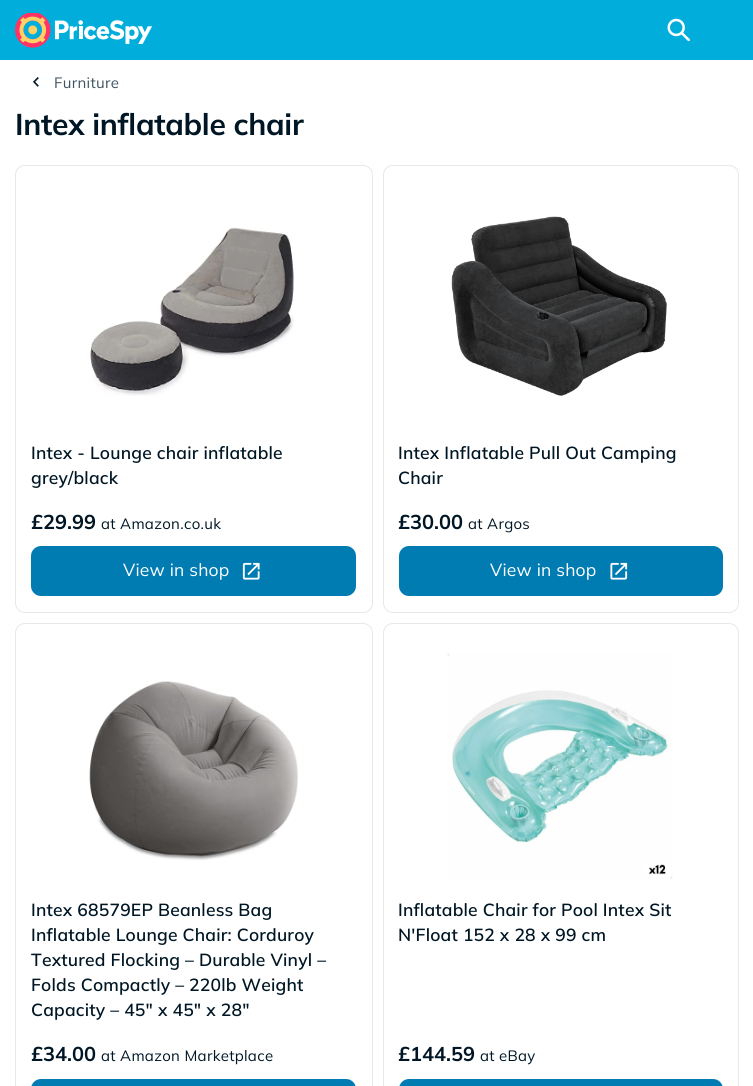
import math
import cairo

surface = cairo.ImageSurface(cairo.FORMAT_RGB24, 753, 1086)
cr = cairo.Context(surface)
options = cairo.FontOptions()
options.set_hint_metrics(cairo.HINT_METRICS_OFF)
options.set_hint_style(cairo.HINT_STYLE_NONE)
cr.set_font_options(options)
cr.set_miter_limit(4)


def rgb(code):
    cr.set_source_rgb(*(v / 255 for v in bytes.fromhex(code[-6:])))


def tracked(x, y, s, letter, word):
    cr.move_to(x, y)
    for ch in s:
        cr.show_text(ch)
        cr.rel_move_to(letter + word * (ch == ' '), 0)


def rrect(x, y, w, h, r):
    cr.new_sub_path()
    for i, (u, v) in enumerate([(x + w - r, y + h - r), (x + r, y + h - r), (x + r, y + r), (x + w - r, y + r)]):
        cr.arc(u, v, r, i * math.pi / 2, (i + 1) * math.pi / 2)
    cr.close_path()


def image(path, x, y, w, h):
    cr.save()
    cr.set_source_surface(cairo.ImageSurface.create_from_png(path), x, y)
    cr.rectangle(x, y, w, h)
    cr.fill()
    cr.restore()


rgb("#ffffff")
cr.paint()
rgb("#00addb")
cr.rectangle(0, 0, 753, 60)
cr.fill()
image("img/1.png", 15, 13, 137, 35)
image("img/2.png", 667, 18, 23, 24)
image("img/3.png", 33, 77, 6, 10)
rrect(15.5, 165.5, 357, 447, 9.5)
rgb("#e6e8ea")
cr.set_line_width(1)
cr.stroke()
image("img/4.png", 90, 227, 204, 169)
rgb("#007cb2")
rrect(31, 546, 325, 50, 10)
cr.fill()
image("img/5.png", 242, 562, 18, 18)
rrect(383.5, 165.5, 355, 447, 9.5)
rgb("#e6e8ea")
cr.stroke()
image("img/6.png", 451, 216, 216, 180)
rgb("#007cb2")
rrect(399, 546, 324, 50, 10)
cr.fill()
image("img/7.png", 610, 562, 18, 18)
rrect(15.5, 623.5, 357, 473, 9.5)
rgb("#e6e8ea")
cr.stroke()
image("img/8.png", 89, 681, 209, 180)
rgb("#007cb2")
rrect(31, 1079, 325, 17, 10)
cr.fill()
rrect(383.5, 623.5, 355, 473, 9.5)
rgb("#e6e8ea")
cr.stroke()
image("img/9.png", 447, 653, 226, 226)
rgb("#007cb2")
rrect(399, 1079, 324, 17, 10)
cr.fill()
cr.select_font_face("Mulish")
cr.set_font_size(15)
rgb("#3f535f")
tracked(54, 88, "Furniture", 0.3, 0)
cr.select_font_face("Mulish", cairo.FONT_SLANT_NORMAL, cairo.FONT_WEIGHT_BOLD)
cr.set_font_size(30)
rgb("#001624")
tracked(15, 135, "Intex inflatable chair", -0.3, 0)
cr.select_font_face("Mulish SemiBold")
cr.set_font_size(17.5)
tracked(31, 459, "Intex - Lounge chair inflatable", 0.2, 0)
tracked(31, 484, "grey/black", 0.2, 0)
cr.select_font_face("Mulish", cairo.FONT_SLANT_NORMAL, cairo.FONT_WEIGHT_BOLD)
cr.set_font_size(20)
cr.move_to(31, 529)
cr.show_text("£29.99")
cr.select_font_face("Mulish")
cr.set_font_size(15)
tracked(101, 529, "at Amazon.co.uk", 0.3, 0)
cr.set_font_size(17.5)
rgb("#ffffff")
tracked(123, 576, "View in shop", 0.2, 0)
cr.select_font_face("Mulish SemiBold")
rgb("#001624")
tracked(398, 459, "Intex Inflatable Pull Out Camping", 0.2, 0)
tracked(398, 484, "Chair", 0.2, 0)
cr.select_font_face("Mulish", cairo.FONT_SLANT_NORMAL, cairo.FONT_WEIGHT_BOLD)
cr.set_font_size(20)
cr.move_to(398, 529)
cr.show_text("£30.00")
cr.select_font_face("Mulish")
cr.set_font_size(15)
tracked(468, 529, "at Argos", 0.3, 0)
cr.set_font_size(17.5)
rgb("#ffffff")
tracked(490, 576, "View in shop", 0.2, 0)
cr.select_font_face("Mulish SemiBold")
rgb("#001624")
for x, y, s in [
    (31, 916, "Intex 68579EP Beanless Bag"),
    (31, 941, "Inflatable Lounge Chair: Corduroy"),
    (31, 966, "Textured Flocking – Durable Vinyl –"),
    (31, 991, "Folds Compactly – 220lb Weight"),
    (31, 1016, "Capacity – 45\" x 45\" x 28\""),
]:
    tracked(x, y, s, 0.2, 0)
cr.select_font_face("Mulish", cairo.FONT_SLANT_NORMAL, cairo.FONT_WEIGHT_BOLD)
cr.set_font_size(20)
cr.move_to(31, 1061)
cr.show_text("£34.00")
cr.select_font_face("Mulish")
cr.set_font_size(15)
tracked(101, 1061, "at Amazon Marketplace", 0.3, 0)
cr.select_font_face("Mulish SemiBold")
cr.set_font_size(17.5)
tracked(398, 916, "Inflatable Chair for Pool Intex Sit", 0.2, 0)
tracked(398, 941, "N'Float 152 x 28 x 99 cm", 0.2, 0)
cr.select_font_face("Mulish", cairo.FONT_SLANT_NORMAL, cairo.FONT_WEIGHT_BOLD)
cr.set_font_size(20)
cr.move_to(398, 1061)
cr.show_text("£144.59")
cr.select_font_face("Mulish")
cr.set_font_size(15)
tracked(480, 1061, "at eBay", 0.3, 0)
surface.write_to_png("page.png")
